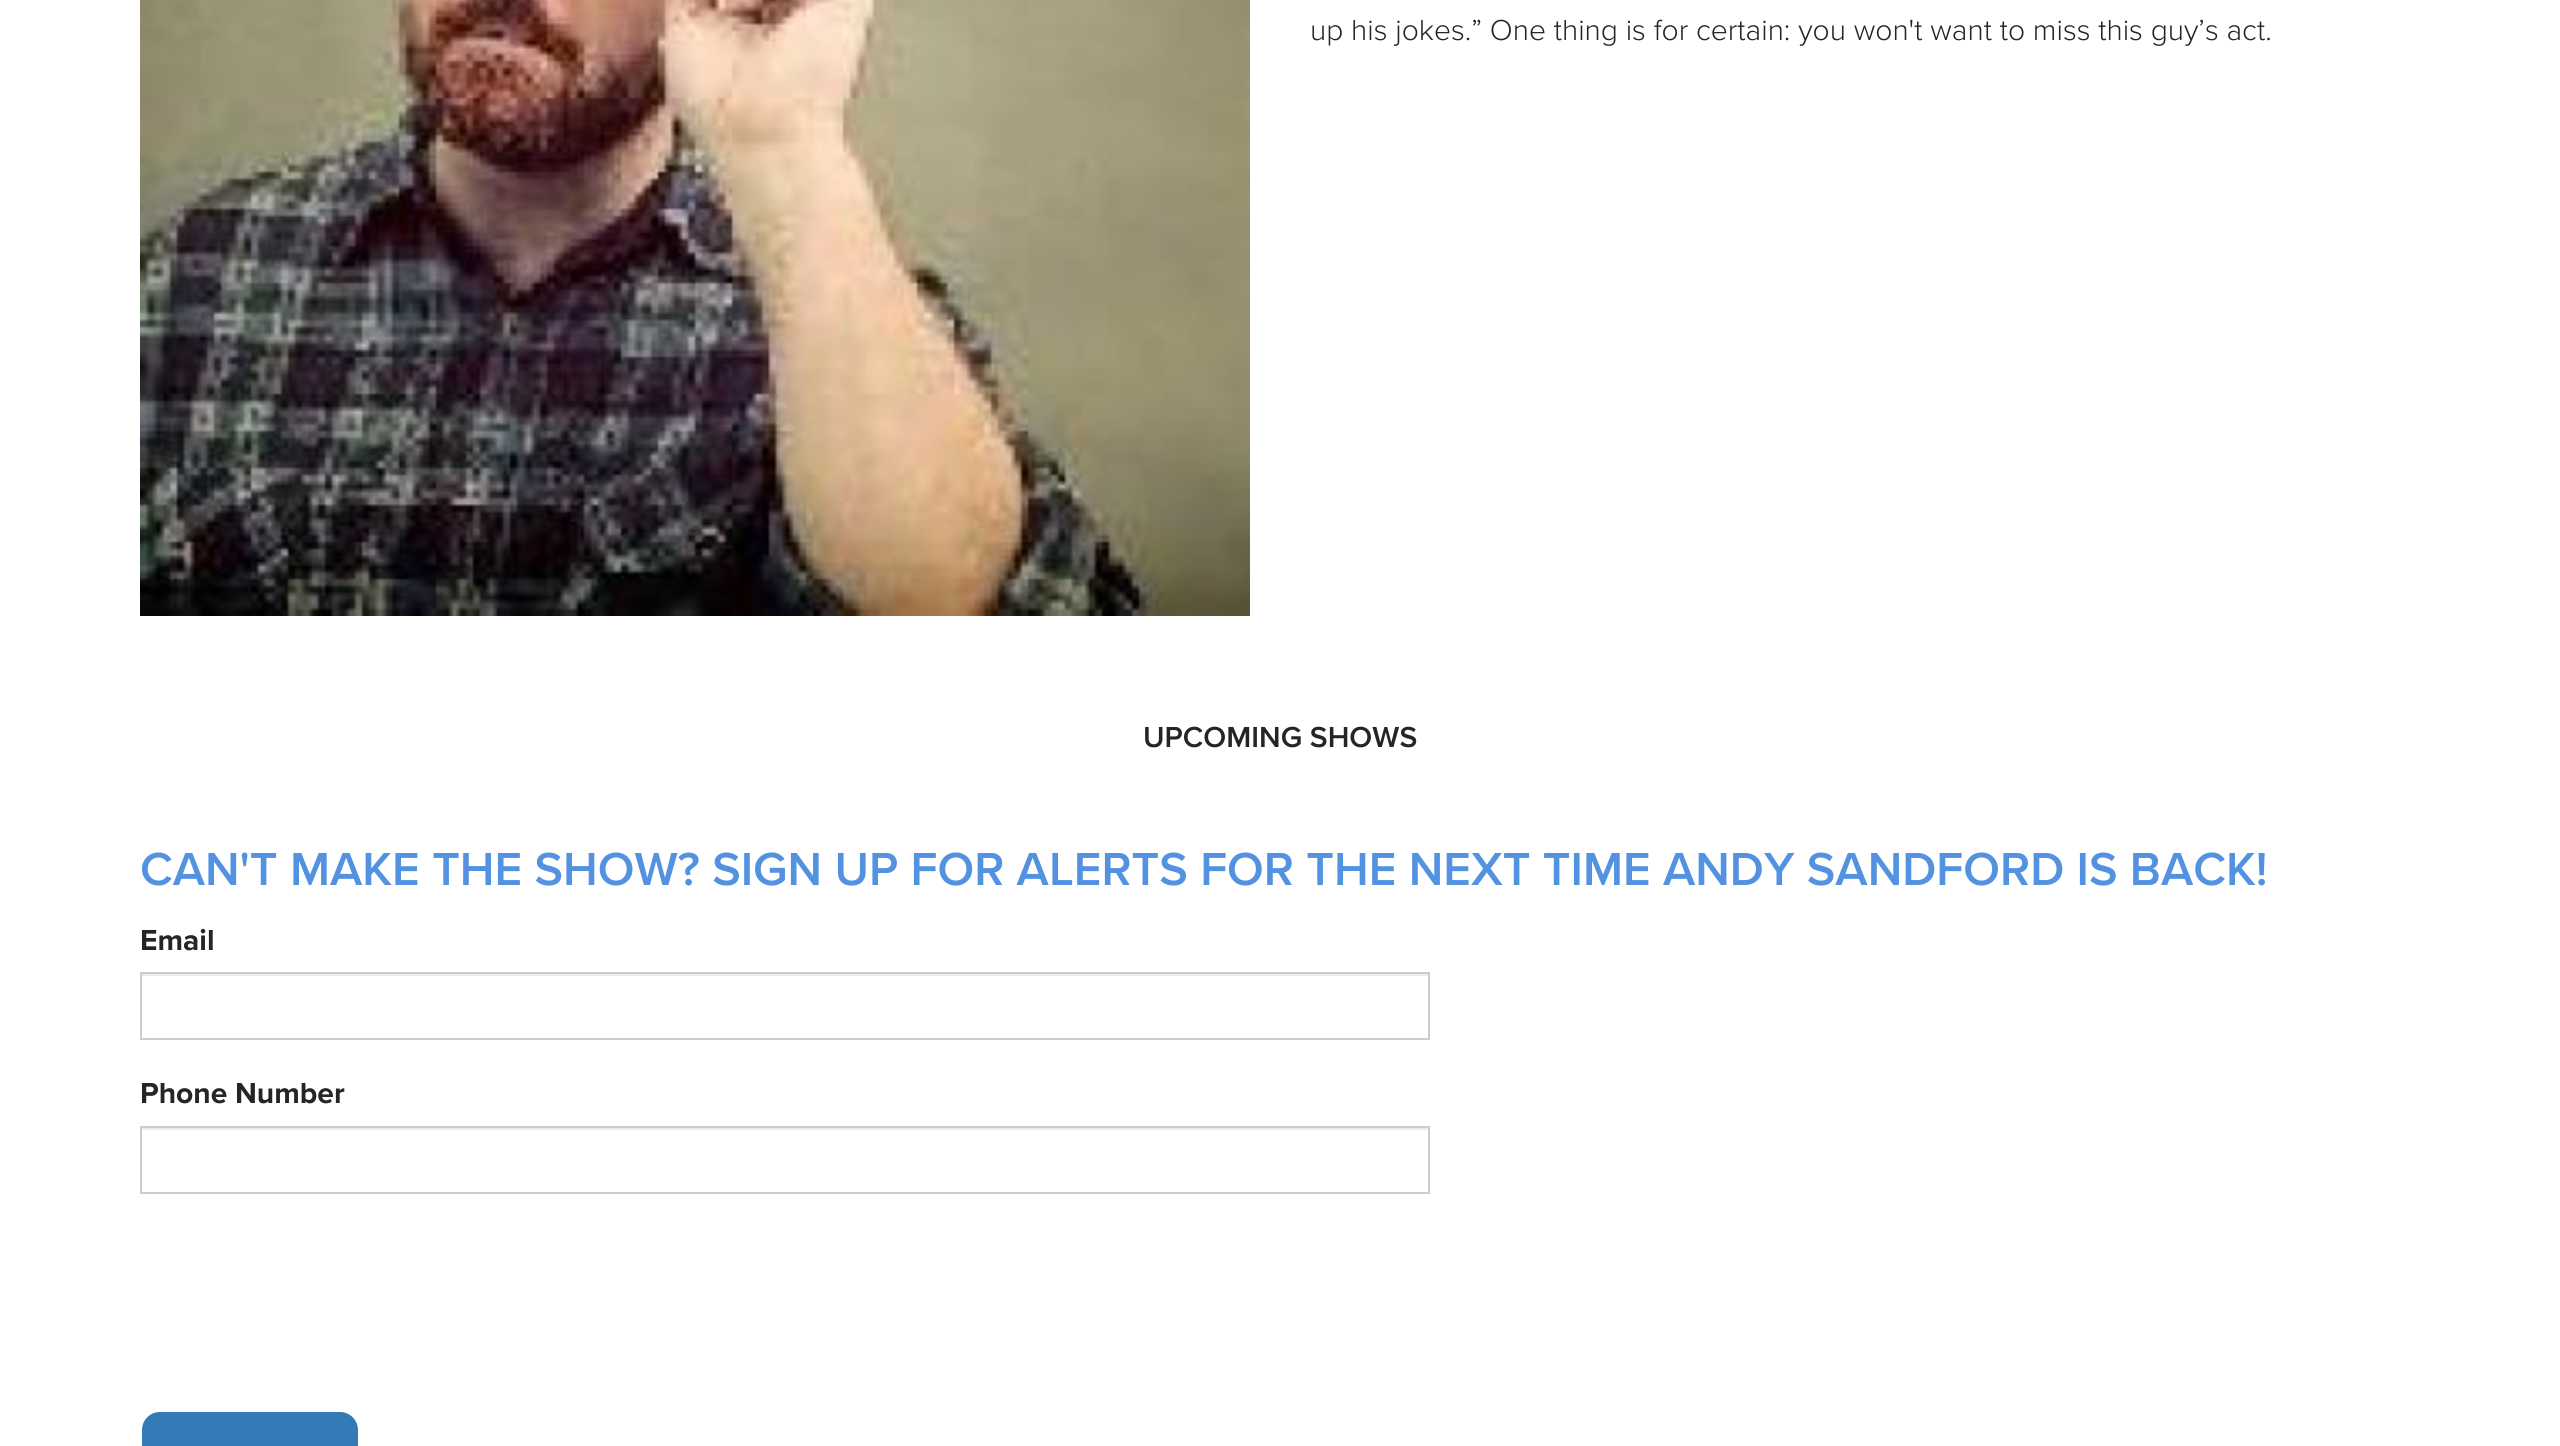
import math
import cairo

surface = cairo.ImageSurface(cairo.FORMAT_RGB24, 2560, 1446)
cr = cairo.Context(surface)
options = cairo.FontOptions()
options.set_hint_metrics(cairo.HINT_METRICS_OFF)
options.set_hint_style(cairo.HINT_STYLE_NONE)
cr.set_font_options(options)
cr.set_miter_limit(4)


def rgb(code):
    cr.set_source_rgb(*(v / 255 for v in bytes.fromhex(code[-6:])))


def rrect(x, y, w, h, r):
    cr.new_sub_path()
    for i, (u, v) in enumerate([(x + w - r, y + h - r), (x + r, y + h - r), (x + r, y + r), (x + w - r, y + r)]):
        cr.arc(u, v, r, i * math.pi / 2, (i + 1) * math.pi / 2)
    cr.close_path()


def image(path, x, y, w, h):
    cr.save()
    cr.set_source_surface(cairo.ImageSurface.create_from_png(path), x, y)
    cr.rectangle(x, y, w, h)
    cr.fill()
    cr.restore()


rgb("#ffffff")
cr.paint()
image("img/1.png", 140, 0, 1110, 616)
rgb("#ececec")
cr.rectangle(142, 974, 1286, 2)
cr.fill()
cr.rectangle(141, 973, 1288, 66)
rgb("#cccccc")
cr.stroke()
rgb("#ececec")
cr.rectangle(142, 1128, 1286, 2)
cr.fill()
cr.rectangle(141, 1127, 1288, 66)
rgb("#cccccc")
cr.stroke()
rgb("#337ab7")
rrect(141, 1411, 218, 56, 19)
cr.fill_preserve()
rgb("#ffffff")
cr.stroke()
cr.select_font_face("Proxima Nova Light")
cr.set_font_size(30)
rgb("#252525")
cr.move_to(1310, 40)
cr.show_text("up his jokes.” One thing is for certain: you won't want to miss this guy’s act.")
cr.select_font_face("Proxima Nova SemiBold")
cr.move_to(1143, 747)
cr.show_text("UPCOMING SHOWS")
cr.set_font_size(48)
rgb("#5292e1")
cr.move_to(140, 885)
cr.show_text("CAN'T MAKE THE SHOW? SIGN UP FOR ALERTS FOR THE NEXT TIME ANDY SANDFORD IS BACK!")
cr.select_font_face("Proxima Nova", cairo.FONT_SLANT_NORMAL, cairo.FONT_WEIGHT_BOLD)
cr.set_font_size(30)
rgb("#252525")
cr.move_to(140, 950)
cr.show_text("Email")
cr.move_to(140, 1103)
cr.show_text("Phone Number")
surface.write_to_png("page.png")
